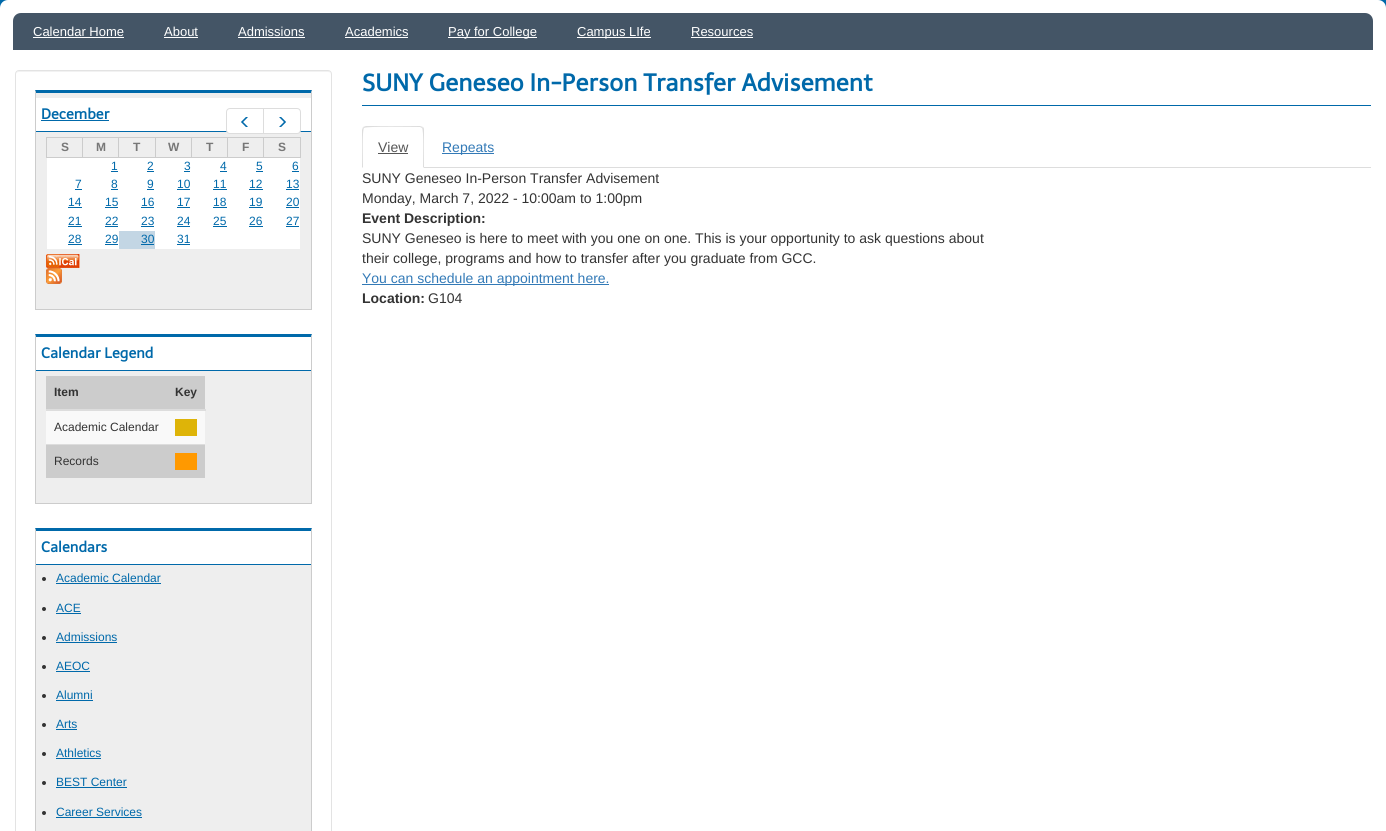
import math
import cairo

surface = cairo.ImageSurface(cairo.FORMAT_RGB24, 1386, 831)
cr = cairo.Context(surface)
options = cairo.FontOptions()
options.set_hint_metrics(cairo.HINT_METRICS_OFF)
options.set_hint_style(cairo.HINT_STYLE_NONE)
cr.set_font_options(options)
cr.set_miter_limit(4)


def rgb(code):
    cr.set_source_rgb(*(v / 255 for v in bytes.fromhex(code[-6:])))


def rrect(x, y, w, h, r):
    cr.new_sub_path()
    for i, (u, v) in enumerate([(x + w - r, y + h - r), (x + r, y + h - r), (x + r, y + r), (x + w - r, y + r)]):
        cr.arc(u, v, r, i * math.pi / 2, (i + 1) * math.pi / 2)
    cr.close_path()


def image(path, x, y, w, h):
    cr.save()
    cr.set_source_surface(cairo.ImageSurface.create_from_png(path), x, y)
    cr.rectangle(x, y, w, h)
    cr.fill()
    cr.restore()


rgb("#ffffff")
cr.paint()
rgb("#0069aa")
cr.rectangle(0, 0, 1386, 8)
cr.fill()
rgb("#ffffff")
cr.new_path()
cr.move_to(8, 0)
cr.line_to(1378, 0)
cr.curve_to(1382.5, 0, 1386, 3.5, 1386, 8)
cr.line_to(1386, 50)
cr.line_to(0, 50)
cr.line_to(0, 8)
cr.curve_to(0, 3.5, 3.5, 0, 8, 0)
cr.close_path()
cr.fill()
rgb("#445566")
cr.new_path()
cr.move_to(21, 13)
cr.line_to(1365, 13)
cr.curve_to(1369.5, 13, 1373, 16.5, 1373, 21)
cr.line_to(1373, 50)
cr.line_to(13, 50)
cr.line_to(13, 21)
cr.curve_to(13, 16.5, 16.5, 13, 21, 13)
cr.close_path()
cr.fill()
for x, y, w, h, color in [
    (33, 37, 91, 1, "#ffffff"),
    (164, 37, 34, 1, "#ffffff"),
    (238, 37, 67, 1, "#ffffff"),
    (345, 37, 63, 1, "#ffffff"),
    (448, 37, 89, 1, "#ffffff"),
    (577, 37, 74, 1, "#ffffff"),
    (691, 37, 62, 1, "#ffffff"),
]:
    rgb(color)
    cr.rectangle(x, y, w, h)
    cr.fill()
rgb("#f2f2f2")
cr.new_path()
cr.move_to(19, 72)
cr.line_to(328, 72)
cr.curve_to(330, 72, 331, 73, 331, 75)
cr.line_to(330, 72)
cr.line_to(329, 71)
cr.line_to(19, 71)
cr.curve_to(17, 71, 16, 73, 16, 75)
cr.curve_to(16, 73, 17, 72, 19, 72)
cr.close_path()
cr.fill()
rrect(15.5, 70.5, 316, 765, 3.5)
rgb("#e3e3e3")
cr.set_line_width(1)
cr.stroke()
rgb("#eeeeee")
cr.rectangle(36, 93, 275, 216)
cr.fill()
rgb("#0069aa")
cr.new_path()
cr.move_to(35, 90)
cr.line_to(312, 90)
cr.line_to(311, 93)
cr.line_to(36, 93)
cr.close_path()
cr.fill()
rgb("#cccccc")
cr.new_path()
cr.move_to(312, 90)
cr.line_to(312, 310)
cr.line_to(311, 309)
cr.line_to(311, 93)
cr.close_path()
cr.fill()
cr.rectangle(35, 309, 277, 1)
cr.fill()
cr.new_path()
cr.move_to(35, 310)
cr.line_to(35, 90)
cr.line_to(36, 93)
cr.line_to(36, 309)
cr.close_path()
cr.fill()
for x, y, w, h, color in [
    (36, 98, 275, 33, "#ffffff"),
    (36, 131, 275, 1, "#0069aa"),
    (41, 120, 68, 1, "#0069aa"),
]:
    rgb(color)
    cr.rectangle(x, y, w, h)
    cr.fill()
rgb("#ffffff")
cr.new_path()
cr.move_to(230, 108.5)
cr.line_to(263.5, 108.5)
cr.line_to(263.5, 133.5)
cr.line_to(230, 133.5)
cr.curve_to(228, 133.5, 226.5, 132, 226.5, 130)
cr.line_to(226.5, 112)
cr.curve_to(226.5, 110, 228, 108.5, 230, 108.5)
cr.close_path()
cr.fill_preserve()
rgb("#dddddd")
cr.stroke()
image("img/1.png", 241, 117, 7, 10)
rgb("#ffffff")
cr.new_path()
cr.move_to(263.5, 108.5)
cr.line_to(297, 108.5)
cr.curve_to(299, 108.5, 300.5, 110, 300.5, 112)
cr.line_to(300.5, 130)
cr.curve_to(300.5, 132, 299, 133.5, 297, 133.5)
cr.line_to(263.5, 133.5)
cr.close_path()
cr.fill_preserve()
rgb("#dddddd")
cr.stroke()
image("img/2.png", 279, 117, 7, 10)
for x, y, w, h, color in [
    (263, 137, 38, 1, "#cccccc"),
    (300, 137, 1, 21, "#cccccc"),
    (263, 157, 38, 1, "#cccccc"),
    (263, 137, 1, 21, "#cccccc"),
    (227, 137, 37, 1, "#cccccc"),
    (227, 157, 37, 1, "#cccccc"),
    (227, 137, 1, 21, "#cccccc"),
    (191, 137, 37, 1, "#cccccc"),
    (191, 157, 37, 1, "#cccccc"),
    (191, 137, 1, 21, "#cccccc"),
    (155, 137, 37, 1, "#cccccc"),
    (155, 157, 37, 1, "#cccccc"),
    (155, 137, 1, 21, "#cccccc"),
    (118, 137, 38, 1, "#cccccc"),
    (118, 157, 38, 1, "#cccccc"),
    (118, 137, 1, 21, "#cccccc"),
    (82, 137, 37, 1, "#cccccc"),
    (82, 157, 37, 1, "#cccccc"),
    (82, 137, 1, 21, "#cccccc"),
    (46, 137, 37, 1, "#cccccc"),
    (46, 157, 37, 1, "#cccccc"),
    (46, 137, 1, 21, "#cccccc"),
    (47, 158, 253, 91, "#ffffff"),
    (111, 171, 7, 1, "#0069aa"),
    (147, 171, 7, 1, "#0069aa"),
    (184, 171, 6, 1, "#0069aa"),
    (220, 171, 7, 1, "#0069aa"),
    (256, 171, 7, 1, "#0069aa"),
    (292, 171, 7, 1, "#0069aa"),
    (75, 189, 7, 1, "#0069aa"),
    (111, 189, 7, 1, "#0069aa"),
    (147, 189, 7, 1, "#0069aa"),
    (177, 189, 13, 1, "#0069aa"),
    (213, 189, 14, 1, "#0069aa"),
    (249, 189, 14, 1, "#0069aa"),
    (286, 189, 13, 1, "#0069aa"),
    (68, 207, 14, 1, "#0069aa"),
    (105, 207, 13, 1, "#0069aa"),
    (141, 207, 13, 1, "#0069aa"),
    (177, 207, 13, 1, "#0069aa"),
    (213, 207, 14, 1, "#0069aa"),
    (249, 207, 14, 1, "#0069aa"),
    (286, 207, 13, 1, "#0069aa"),
    (68, 226, 14, 1, "#0069aa"),
    (105, 226, 13, 1, "#0069aa"),
    (141, 226, 13, 1, "#0069aa"),
    (177, 226, 13, 1, "#0069aa"),
    (213, 226, 14, 1, "#0069aa"),
    (249, 226, 14, 1, "#0069aa"),
    (286, 226, 13, 1, "#0069aa"),
    (68, 244, 14, 1, "#0069aa"),
    (105, 244, 13, 1, "#0069aa"),
    (119, 231, 36, 18, "#c3d6e4"),
    (141, 244, 13, 1, "#0069aa"),
    (177, 244, 13, 1, "#0069aa"),
]:
    rgb(color)
    cr.rectangle(x, y, w, h)
    cr.fill()
image("img/3.png", 46, 254, 34, 14)
image("img/4.png", 46, 268, 16, 16)
rgb("#eeeeee")
cr.rectangle(36, 371, 275, 132)
cr.fill()
rgb("#0069aa")
cr.new_path()
cr.move_to(35, 334)
cr.line_to(312, 334)
cr.line_to(311, 337)
cr.line_to(36, 337)
cr.close_path()
cr.fill()
rgb("#cccccc")
cr.new_path()
cr.move_to(312, 334)
cr.line_to(312, 504)
cr.line_to(311, 503)
cr.line_to(311, 337)
cr.close_path()
cr.fill()
cr.rectangle(35, 503, 277, 1)
cr.fill()
cr.new_path()
cr.move_to(35, 504)
cr.line_to(35, 334)
cr.line_to(36, 337)
cr.line_to(36, 503)
cr.close_path()
cr.fill()
for x, y, w, h, color in [
    (36, 370, 275, 1, "#0069aa"),
    (46, 376, 159, 102, "#cccccc"),
    (46, 409, 160, 2, "#dddddd"),
    (46, 411, 159, 33, "#f9f9f9"),
    (175, 419, 22, 17, "#deb408"),
    (46, 444, 159, 1, "#dddddd"),
    (175, 453, 22, 17, "#ff9900"),
    (36, 565, 275, 266, "#eeeeee"),
]:
    rgb(color)
    cr.rectangle(x, y, w, h)
    cr.fill()
rgb("#0069aa")
cr.new_path()
cr.move_to(35, 528)
cr.line_to(312, 528)
cr.line_to(311, 531)
cr.line_to(36, 531)
cr.close_path()
cr.fill()
rgb("#cccccc")
cr.new_path()
cr.move_to(312, 528)
cr.line_to(312, 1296)
cr.line_to(311, 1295)
cr.line_to(311, 531)
cr.close_path()
cr.fill()
cr.new_path()
cr.move_to(35, 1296)
cr.line_to(35, 528)
cr.line_to(36, 531)
cr.line_to(36, 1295)
cr.close_path()
cr.fill()
rgb("#0069aa")
cr.rectangle(36, 564, 275, 1)
cr.fill()
rgb("#333333")
cr.arc(44, 579, 2, 0, 2 * math.pi)
cr.fill()
rgb("#0069aa")
cr.rectangle(56, 583, 105, 1)
cr.fill()
rgb("#333333")
cr.arc(44, 609, 2, 0, 2 * math.pi)
cr.fill()
rgb("#0069aa")
cr.rectangle(56, 613, 25, 1)
cr.fill()
rgb("#333333")
cr.arc(44, 638, 2, 0, 2 * math.pi)
cr.fill()
rgb("#0069aa")
cr.rectangle(56, 642, 61, 1)
cr.fill()
rgb("#333333")
cr.arc(44, 667, 2, 0, 2 * math.pi)
cr.fill()
rgb("#0069aa")
cr.rectangle(56, 671, 34, 1)
cr.fill()
rgb("#333333")
cr.arc(44, 696, 2, 0, 2 * math.pi)
cr.fill()
rgb("#0069aa")
cr.rectangle(56, 700, 37, 1)
cr.fill()
rgb("#333333")
cr.arc(44, 725, 2, 0, 2 * math.pi)
cr.fill()
rgb("#0069aa")
cr.rectangle(56, 729, 21, 1)
cr.fill()
rgb("#333333")
cr.arc(44, 754, 2, 0, 2 * math.pi)
cr.fill()
rgb("#0069aa")
cr.rectangle(56, 758, 45, 1)
cr.fill()
rgb("#333333")
cr.arc(44, 783, 2, 0, 2 * math.pi)
cr.fill()
rgb("#0069aa")
cr.rectangle(56, 787, 71, 1)
cr.fill()
rgb("#333333")
cr.arc(44, 813, 2, 0, 2 * math.pi)
cr.fill()
for x, y, w, h, color in [
    (56, 817, 86, 1, "#0069aa"),
    (362, 105, 1009, 1, "#0069aa"),
    (424, 167, 947, 1, "#dddddd"),
]:
    rgb(color)
    cr.rectangle(x, y, w, h)
    cr.fill()
cr.new_path()
cr.move_to(366, 126)
cr.line_to(363, 127)
cr.line_to(364, 128)
cr.curve_to(366, 126, 415, 127, 420, 127)
cr.line_to(422, 128)
cr.line_to(423, 127)
cr.line_to(420, 126)
cr.close_path()
cr.fill()
cr.new_path()
cr.move_to(424, 168)
cr.line_to(424, 130)
cr.curve_to(424, 129, 424, 128, 423, 127)
cr.line_to(422, 128)
cr.curve_to(424, 130, 423, 162, 423, 167)
cr.close_path()
cr.move_to(362, 168)
cr.line_to(363, 167)
cr.curve_to(363, 162, 362, 130, 364, 128)
cr.line_to(363, 127)
cr.line_to(362, 130)
cr.close_path()
cr.fill()
for x, y, w, h, color in [
    (378, 153, 30, 1, "#555555"),
    (442, 153, 52, 1, "#337ab7"),
    (362, 284, 247, 1, "#337ab7"),
]:
    rgb(color)
    cr.rectangle(x, y, w, h)
    cr.fill()
cr.select_font_face("Liberation Sans")
cr.set_font_size(13)
rgb("#ffffff")
for x, y, s in [
    (33, 36, "Calendar Home"),
    (164, 36, "About"),
    (238, 36, "Admissions"),
    (345, 36, "Academics"),
    (448, 36, "Pay for College"),
    (577, 36, "Campus LIfe"),
    (691, 36, "Resources"),
]:
    cr.move_to(x, y)
    cr.show_text(s)
cr.select_font_face("Telex", cairo.FONT_SLANT_NORMAL, cairo.FONT_WEIGHT_BOLD)
cr.set_font_size(14.5)
rgb("#0069aa")
cr.move_to(41, 119)
cr.show_text("December")
cr.select_font_face("Liberation Sans", cairo.FONT_SLANT_NORMAL, cairo.FONT_WEIGHT_BOLD)
cr.set_font_size(12)
rgb("#777777")
for x, y, s in [
    (61, 151, "S"),
    (96, 151, "M"),
    (133, 151, "T"),
    (168, 151, "W"),
    (206, 151, "T"),
    (242, 151, "F"),
    (278, 151, "S"),
]:
    cr.move_to(x, y)
    cr.show_text(s)
cr.select_font_face("Liberation Sans")
rgb("#0069aa")
for x, y, s in [
    (111, 170, "1"),
    (147, 170, "2"),
    (184, 170, "3"),
    (220, 170, "4"),
    (256, 170, "5"),
    (292, 170, "6"),
    (75, 188, "7"),
    (111, 188, "8"),
    (147, 188, "9"),
    (177, 188, "10"),
    (213, 188, "11"),
    (249, 188, "12"),
    (286, 188, "13"),
    (68, 206, "14"),
    (105, 206, "15"),
    (141, 206, "16"),
    (177, 206, "17"),
    (213, 206, "18"),
    (249, 206, "19"),
    (286, 206, "20"),
    (68, 225, "21"),
    (105, 225, "22"),
    (141, 225, "23"),
    (177, 225, "24"),
    (213, 225, "25"),
    (249, 225, "26"),
    (286, 225, "27"),
    (68, 243, "28"),
    (105, 243, "29"),
    (141, 243, "30"),
    (177, 243, "31"),
]:
    cr.move_to(x, y)
    cr.show_text(s)
cr.select_font_face("Telex", cairo.FONT_SLANT_NORMAL, cairo.FONT_WEIGHT_BOLD)
cr.set_font_size(14.5)
cr.move_to(41, 358)
cr.show_text("Calendar Legend")
cr.select_font_face("Liberation Sans", cairo.FONT_SLANT_NORMAL, cairo.FONT_WEIGHT_BOLD)
cr.set_font_size(12)
rgb("#333333")
cr.move_to(54, 396)
cr.show_text("Item")
cr.move_to(175, 396)
cr.show_text("Key")
cr.select_font_face("Liberation Sans")
cr.move_to(54, 431)
cr.show_text("Academic Calendar")
cr.move_to(54, 465)
cr.show_text("Records")
cr.select_font_face("Telex", cairo.FONT_SLANT_NORMAL, cairo.FONT_WEIGHT_BOLD)
cr.set_font_size(14.5)
rgb("#0069aa")
cr.move_to(41, 552)
cr.show_text("Calendars")
cr.select_font_face("Liberation Sans")
cr.set_font_size(12)
for x, y, s in [
    (56, 582, "Academic Calendar"),
    (56, 612, "ACE"),
    (56, 641, "Admissions"),
    (56, 670, "AEOC"),
    (56, 699, "Alumni"),
    (56, 728, "Arts"),
    (56, 757, "Athletics"),
    (56, 786, "BEST Center"),
    (56, 816, "Career Services"),
]:
    cr.move_to(x, y)
    cr.show_text(s)
cr.select_font_face("Telex", cairo.FONT_SLANT_NORMAL, cairo.FONT_WEIGHT_BOLD)
cr.set_font_size(24)
cr.move_to(362, 91)
cr.show_text("SUNY Geneseo In-Person Transfer Advisement")
cr.select_font_face("Liberation Sans")
cr.set_font_size(14)
rgb("#555555")
cr.move_to(378, 152)
cr.show_text("View")
rgb("#337ab7")
cr.move_to(442, 152)
cr.show_text("Repeats")
rgb("#333333")
cr.move_to(362, 183)
cr.show_text("SUNY Geneseo In-Person Transfer Advisement")
cr.move_to(362, 203)
cr.show_text("Monday, March 7, 2022 - 10:00am to 1:00pm")
cr.select_font_face("Liberation Sans", cairo.FONT_SLANT_NORMAL, cairo.FONT_WEIGHT_BOLD)
cr.move_to(362, 223)
cr.show_text("Event Description:")
cr.select_font_face("Liberation Sans")
cr.move_to(362, 243)
cr.show_text("SUNY Geneseo is here to meet with you one on one. This is your opportunity to ask questions about")
cr.move_to(362, 263)
cr.show_text("their college, programs and how to transfer after you graduate from GCC.")
rgb("#337ab7")
cr.move_to(362, 283)
cr.show_text("You can schedule an appointment here.")
cr.select_font_face("Liberation Sans", cairo.FONT_SLANT_NORMAL, cairo.FONT_WEIGHT_BOLD)
rgb("#333333")
cr.move_to(362, 303)
cr.show_text("Location:")
cr.select_font_face("Liberation Sans")
cr.move_to(428, 303)
cr.show_text("G104")
surface.write_to_png("page.png")
